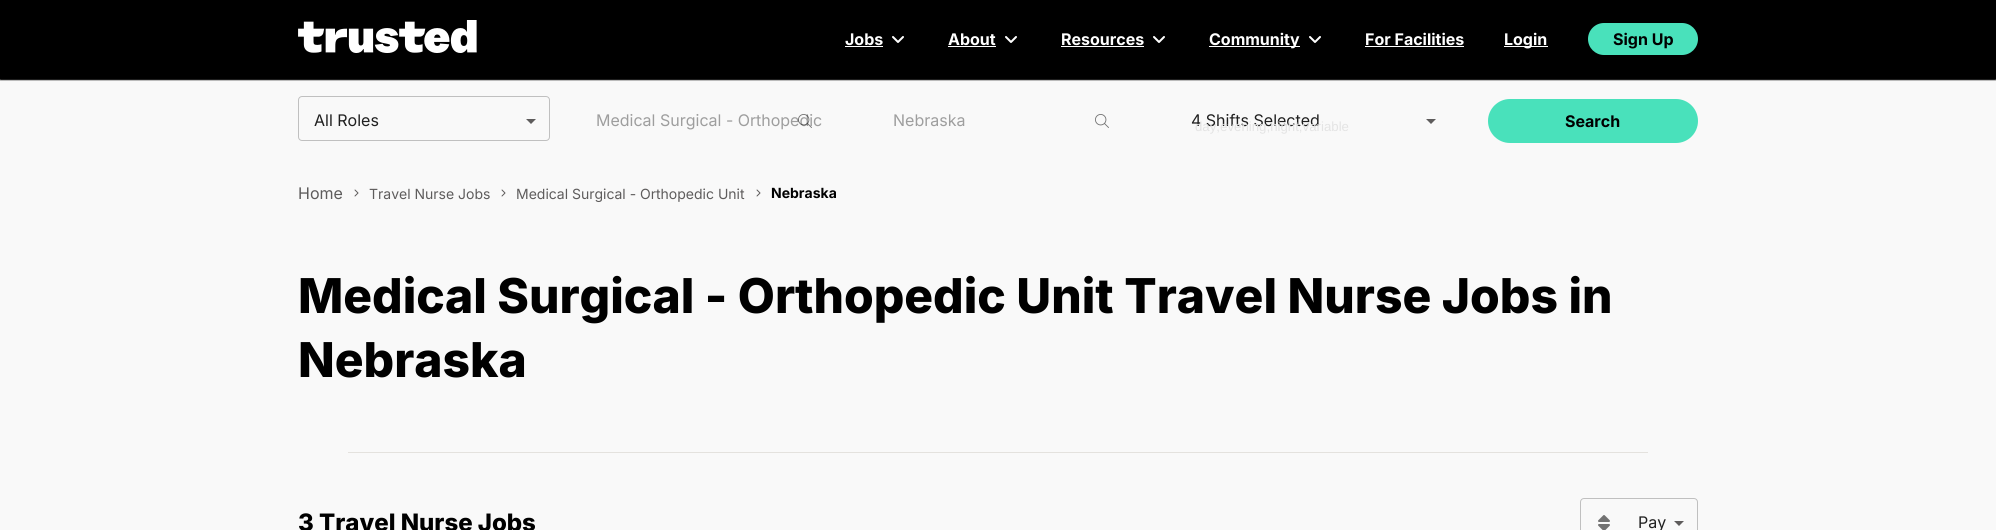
import math
import cairo

surface = cairo.ImageSurface(cairo.FORMAT_RGB24, 1996, 530)
cr = cairo.Context(surface)
options = cairo.FontOptions()
options.set_hint_metrics(cairo.HINT_METRICS_OFF)
options.set_hint_style(cairo.HINT_STYLE_NONE)
cr.set_font_options(options)
cr.set_miter_limit(4)


def rgb(code):
    cr.set_source_rgb(*(v / 255 for v in bytes.fromhex(code[-6:])))


def rrect(x, y, w, h, r):
    cr.new_sub_path()
    for i, (u, v) in enumerate([(x + w - r, y + h - r), (x + r, y + h - r), (x + r, y + r), (x + w - r, y + r)]):
        cr.arc(u, v, r, i * math.pi / 2, (i + 1) * math.pi / 2)
    cr.close_path()


def soft_shadow(x, y, w, h, r, blur, alpha):
    cr.push_group_with_content(cairo.CONTENT_ALPHA)
    cr.set_operator(cairo.OPERATOR_SOURCE)
    for i in range(15, -16, -2):
        e = blur * i / 6
        if min(w, h) + 2 * e > 0:
            cr.set_source_rgba(0, 0, 0, alpha * math.erfc((i - 1) / 8.5) / 2)
            rrect(x - e, y - e, w + 2 * e, h + 2 * e, max(0, min(r + e + blur * .6, min(w, h) / 2 + e)))
            cr.fill()
    cr.mask(cr.pop_group())


def image(path, x, y, w, h):
    cr.save()
    cr.set_source_surface(cairo.ImageSurface.create_from_png(path), x, y)
    cr.rectangle(x, y, w, h)
    cr.fill()
    cr.restore()


rgb("#f9f9f9")
cr.paint()
rgb("#000000")
soft_shadow(0, 1, 1996, 79, 0, 0.5, 1)
rgb("#000000")
cr.rectangle(0, 0, 1996, 79)
cr.fill()
image("img/1.png", 298, 20, 179, 33)
rgb("#ffffff")
cr.rectangle(845, 46, 38, 1)
cr.fill()
image("img/2.png", 892, 36, 12, 7)
cr.rectangle(948, 46, 48, 1)
cr.fill()
image("img/2.png", 1005, 36, 12, 7)
cr.rectangle(1061, 46, 83, 1)
cr.fill()
image("img/2.png", 1153, 36, 12, 7)
cr.rectangle(1209, 46, 91, 1)
cr.fill()
image("img/2.png", 1309, 36, 12, 7)
cr.rectangle(1365, 46, 99, 1)
cr.fill()
cr.rectangle(1504, 46, 44, 1)
cr.fill()
rgb("#49e1bb")
rrect(1588, 23, 110, 32, 16)
cr.fill()
rgb("#5e5c5c")
cr.new_path()
cr.move_to(526, 119)
cr.line_to(531, 124)
cr.line_to(536, 119)
cr.close_path()
cr.fill()
rrect(298.5, 96.5, 251, 44, 3.5)
rgb("#c0c0c0")
cr.set_line_width(1)
cr.stroke()
image("img/4.png", 1095, 114, 14, 14)
rgb("#5e5c5c")
cr.new_path()
cr.move_to(1426, 119)
cr.line_to(1431, 124)
cr.line_to(1436, 119)
cr.close_path()
cr.fill()
rgb("#49e1bb")
rrect(1488, 99, 210, 44, 22)
cr.fill()
image("img/5.png", 354, 189, 5, 8)
image("img/5.png", 501, 189, 5, 8)
image("img/5.png", 756, 189, 5, 8)
rgb("#e4e2de")
cr.rectangle(348, 452, 1300, 1)
cr.fill()
image("img/6.png", 1598, 515, 12, 15)
rgb("#5e5c5c")
cr.new_path()
cr.move_to(1674, 521)
cr.line_to(1679, 526)
cr.line_to(1684, 521)
cr.close_path()
cr.fill()
rrect(1580.5, 498.5, 117, 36, 3.5)
rgb("#c0c0c0")
cr.stroke()
cr.select_font_face("Inter", cairo.FONT_SLANT_NORMAL, cairo.FONT_WEIGHT_BOLD)
cr.set_font_size(16)
rgb("#ffffff")
for x, y, s in [
    (845, 45, "Jobs"),
    (948, 45, "About"),
    (1061, 45, "Resources"),
    (1209, 45, "Community"),
    (1365, 45, "For Facilities"),
    (1504, 45, "Login"),
]:
    cr.move_to(x, y)
    cr.show_text(s)
rgb("#000000")
cr.move_to(1613, 45)
cr.show_text("Sign Up")
cr.select_font_face("Inter")
rgb("#202020")
cr.move_to(314, 126)
cr.show_text("All Roles")
rgb("#9e9e9e")
cr.move_to(596, 126)
cr.show_text("Medical Surgical - Orthopedic")
image("img/3.png", 798, 114, 14, 14)
cr.move_to(893, 126)
cr.show_text("Nebraska")
rgb("#202020")
cr.move_to(1191, 126)
cr.show_text("4 Shifts Selected")
cr.select_font_face("Liberation Sans")
cr.set_font_size(13.25)
rgb("#e4e4e4")
cr.move_to(1195, 131)
cr.show_text("day,evening,night,variable")
cr.select_font_face("Inter", cairo.FONT_SLANT_NORMAL, cairo.FONT_WEIGHT_BOLD)
cr.set_font_size(16)
rgb("#000000")
cr.move_to(1565, 127)
cr.show_text("Search")
cr.select_font_face("Inter")
rgb("#5e5c5c")
cr.move_to(298, 199)
cr.show_text("Home")
cr.set_font_size(14)
cr.move_to(369, 199)
cr.show_text("Travel Nurse Jobs")
cr.move_to(516, 199)
cr.show_text("Medical Surgical - Orthopedic Unit")
cr.select_font_face("Inter", cairo.FONT_SLANT_NORMAL, cairo.FONT_WEIGHT_BOLD)
rgb("#000000")
cr.move_to(771, 198)
cr.show_text("Nebraska")
cr.select_font_face("Inter ExtraBold")
cr.set_font_size(48)
cr.move_to(298, 313)
cr.show_text("Medical Surgical - Orthopedic Unit Travel Nurse Jobs in")
cr.move_to(298, 377)
cr.show_text("Nebraska")
cr.set_font_size(24)
cr.move_to(298, 531)
cr.show_text("3 Travel Nurse Jobs")
cr.select_font_face("Inter")
cr.set_font_size(16)
rgb("#202020")
cr.move_to(1638, 528)
cr.show_text("Pay")
surface.write_to_png("page.png")
